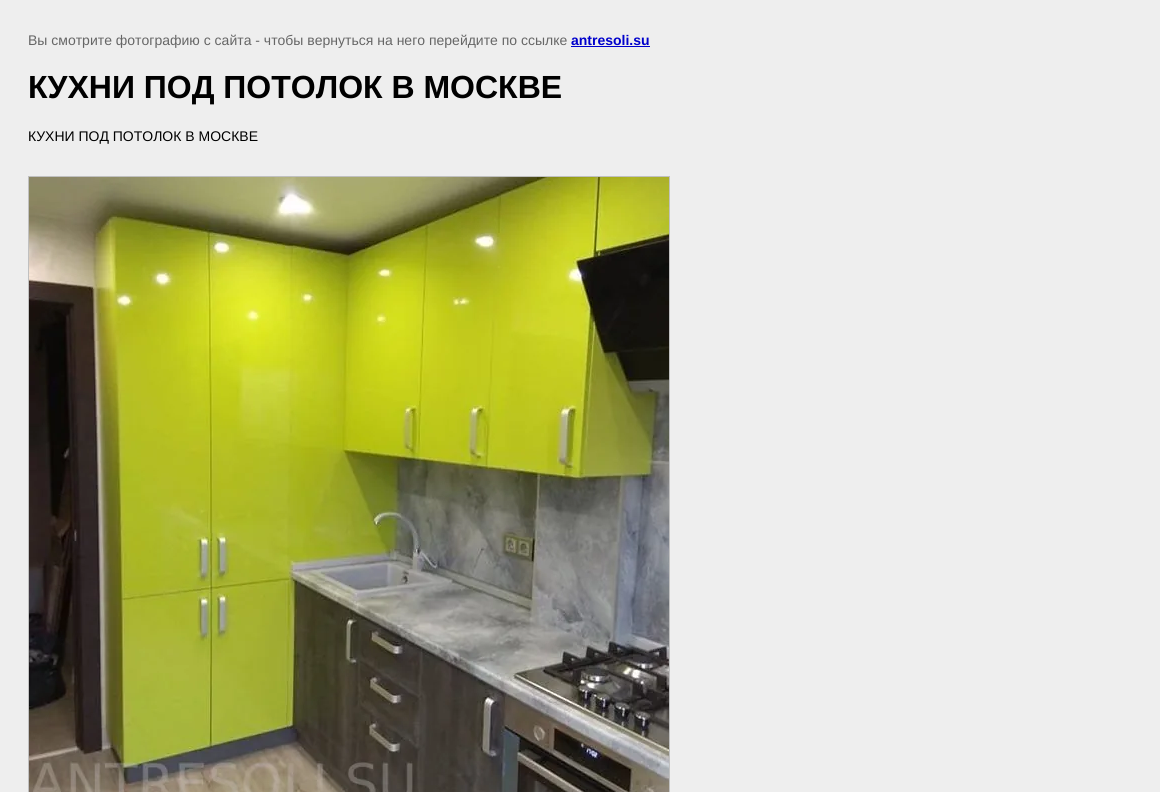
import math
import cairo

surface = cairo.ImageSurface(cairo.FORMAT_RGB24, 1160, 792)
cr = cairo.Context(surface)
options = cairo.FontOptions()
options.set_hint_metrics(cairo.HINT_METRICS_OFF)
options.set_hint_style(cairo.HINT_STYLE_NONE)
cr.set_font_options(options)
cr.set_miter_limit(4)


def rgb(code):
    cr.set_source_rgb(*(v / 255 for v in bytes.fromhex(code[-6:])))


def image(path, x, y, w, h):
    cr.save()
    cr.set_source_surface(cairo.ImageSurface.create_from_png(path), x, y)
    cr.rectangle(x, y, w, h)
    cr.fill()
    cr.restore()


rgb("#eeeeee")
cr.paint()
rgb("#0000cc")
cr.rectangle(571, 46, 79, 1)
cr.fill()
cr.rectangle(28.5, 176.5, 641, 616)
rgb("#c0c0c0")
cr.set_line_width(1)
cr.stroke()
image("img/1.png", 29, 177, 640, 615)
cr.select_font_face("Liberation Sans")
cr.set_font_size(14)
rgb("#666666")
cr.move_to(28, 45)
cr.show_text("Вы смотрите фотографию с сайта - чтобы вернуться на него перейдите по ссылке")
cr.select_font_face("Liberation Sans", cairo.FONT_SLANT_NORMAL, cairo.FONT_WEIGHT_BOLD)
rgb("#0000cc")
cr.move_to(571, 45)
cr.show_text("antresoli.su")
cr.set_font_size(32)
rgb("#000000")
cr.move_to(28, 98)
cr.show_text("КУХНИ ПОД ПОТОЛОК В МОСКВЕ")
cr.select_font_face("Liberation Sans")
cr.set_font_size(14)
cr.move_to(28, 141)
cr.show_text("КУХНИ ПОД ПОТОЛОК В МОСКВЕ")
surface.write_to_png("page.png")
